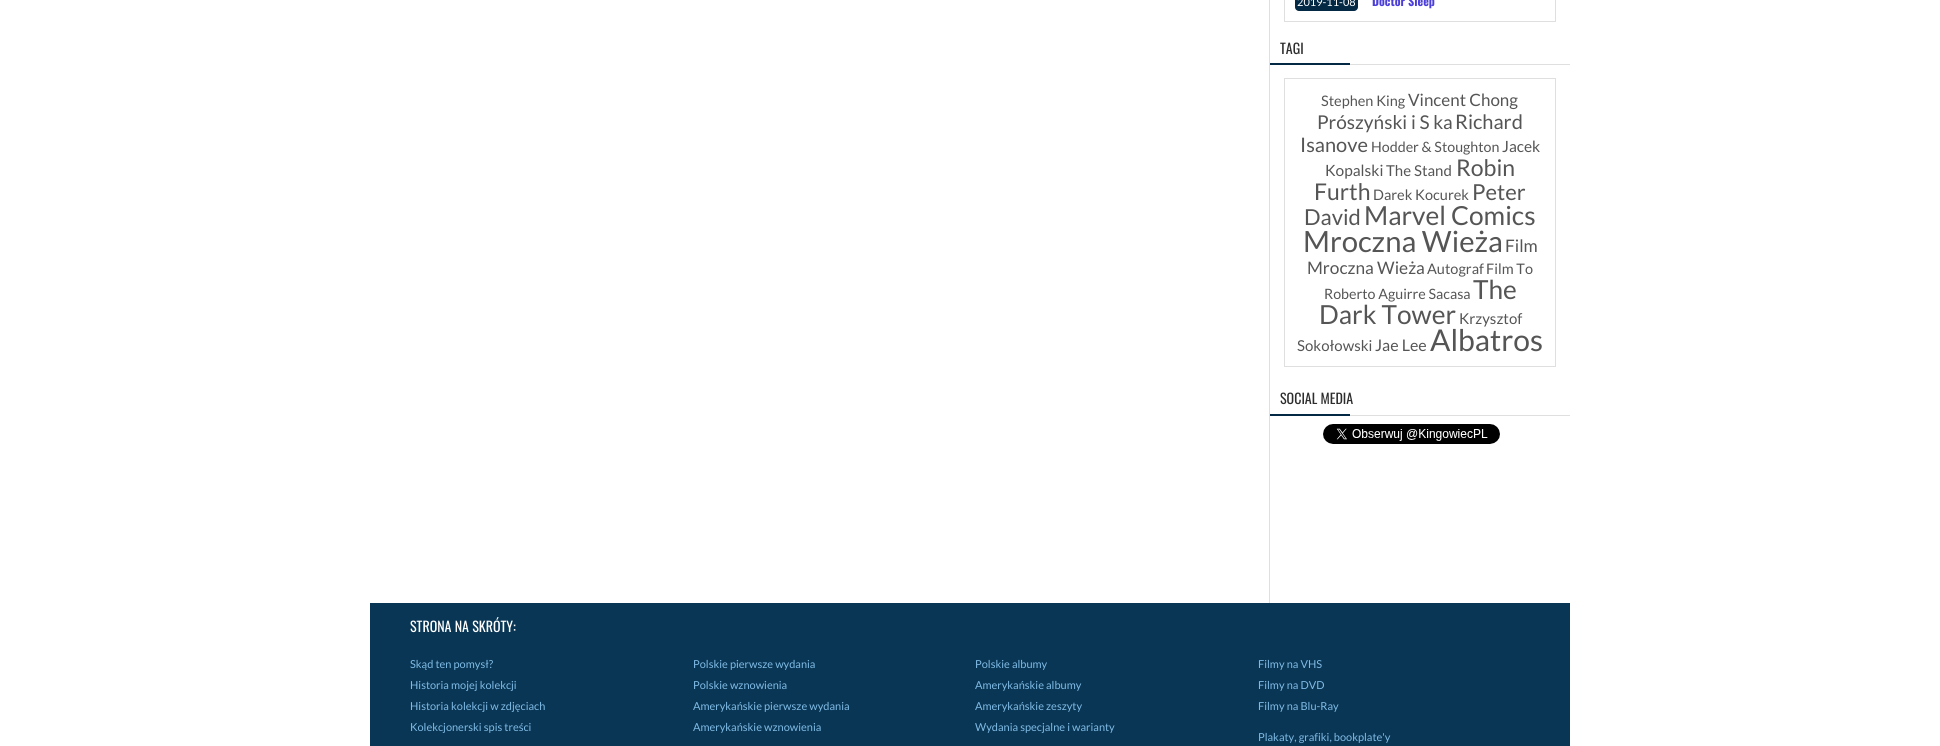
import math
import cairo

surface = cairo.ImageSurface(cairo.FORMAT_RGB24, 1940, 746)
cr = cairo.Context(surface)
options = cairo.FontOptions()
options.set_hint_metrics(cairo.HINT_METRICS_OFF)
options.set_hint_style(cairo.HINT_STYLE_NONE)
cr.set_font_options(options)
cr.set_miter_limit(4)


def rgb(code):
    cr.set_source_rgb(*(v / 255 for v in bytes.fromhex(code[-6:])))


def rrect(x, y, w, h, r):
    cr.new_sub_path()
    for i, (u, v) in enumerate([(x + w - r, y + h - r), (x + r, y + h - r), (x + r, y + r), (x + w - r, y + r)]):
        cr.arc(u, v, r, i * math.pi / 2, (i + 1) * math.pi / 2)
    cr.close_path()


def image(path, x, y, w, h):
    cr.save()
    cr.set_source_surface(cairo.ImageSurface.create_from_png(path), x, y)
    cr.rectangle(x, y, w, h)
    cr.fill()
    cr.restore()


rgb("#ffffff")
cr.paint()
rgb("#dfdfdf")
cr.rectangle(1269, 0, 1, 603)
cr.fill()
cr.rectangle(1284.5, -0.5, 271, 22)
cr.set_line_width(1)
cr.stroke()
rgb("#032944")
rrect(1295, -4, 63, 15, 4)
cr.fill()
rgb("#dfdfdf")
cr.rectangle(1350, 64, 220, 1)
cr.fill()
rgb("#032944")
cr.rectangle(1270, 63, 80, 2)
cr.fill()
cr.rectangle(1284.5, 78.5, 271, 288)
rgb("#dfdfdf")
cr.stroke()
cr.rectangle(1350, 415, 220, 1)
cr.fill()
rgb("#032944")
cr.rectangle(1270, 414, 80, 2)
cr.fill()
image("img/1.png", 1323, 424, 177, 20)
rgb("#093655")
cr.rectangle(370, 603, 1200, 143)
cr.fill()
cr.select_font_face("Lato")
cr.set_font_size(11)
rgb("#ffffff")
cr.move_to(1297, 6)
cr.show_text("2019-11-08")
cr.select_font_face("Oswald", cairo.FONT_SLANT_NORMAL, cairo.FONT_WEIGHT_BOLD)
cr.set_font_size(12)
rgb("#4c3fd9")
cr.move_to(1372, 6)
cr.show_text("Doctor Sleep")
cr.select_font_face("Oswald")
cr.set_font_size(14)
rgb("#2d2d2d")
cr.move_to(1280, 54)
cr.show_text("TAGI")
cr.select_font_face("Lato")
cr.set_font_size(14.5)
rgb("#555555")
cr.move_to(1321, 106)
cr.show_text("Stephen King")
cr.set_font_size(17)
cr.move_to(1408, 106)
cr.show_text("Vincent Chong")
cr.set_font_size(19)
cr.move_to(1317, 129)
cr.show_text("Prószyński i S ka")
cr.set_font_size(20)
cr.move_to(1455, 129)
cr.show_text("Richard")
cr.move_to(1300, 152)
cr.show_text("Isanove")
cr.set_font_size(14.25)
cr.move_to(1371, 152)
cr.show_text("Hodder & Stoughton")
cr.set_font_size(15.5)
cr.move_to(1502, 152)
cr.show_text("Jacek")
cr.move_to(1325, 176)
cr.show_text("Kopalski")
cr.set_font_size(15)
cr.move_to(1386, 176)
cr.show_text("The Stand")
cr.set_font_size(23)
cr.move_to(1456, 176)
cr.show_text("Robin")
cr.move_to(1314, 200)
cr.show_text("Furth")
cr.set_font_size(14.5)
cr.move_to(1373, 200)
cr.show_text("Darek Kocurek")
cr.set_font_size(22)
cr.move_to(1472, 200)
cr.show_text("Peter")
cr.move_to(1304, 225)
cr.show_text("David")
cr.set_font_size(26.25)
cr.move_to(1364, 225)
cr.show_text("Marvel Comics")
cr.set_font_size(29.25)
cr.move_to(1303, 252)
cr.show_text("Mroczna Wieża")
cr.set_font_size(17.25)
cr.move_to(1505, 252)
cr.show_text("Film")
cr.move_to(1307, 274)
cr.show_text("Mroczna Wieża")
cr.set_font_size(14.5)
cr.move_to(1427, 274)
cr.show_text("Autograf")
cr.move_to(1486, 274)
cr.show_text("Film To")
cr.set_font_size(14.25)
cr.move_to(1324, 299)
cr.show_text("Roberto Aguirre Sacasa")
cr.set_font_size(26.25)
cr.move_to(1473, 299)
cr.show_text("The")
cr.move_to(1319, 324)
cr.show_text("Dark Tower")
cr.set_font_size(15)
cr.move_to(1459, 324)
cr.show_text("Krzysztof")
cr.move_to(1297, 351)
cr.show_text("Sokołowski")
cr.set_font_size(16)
cr.move_to(1375, 351)
cr.show_text("Jae Lee")
cr.set_font_size(30)
cr.move_to(1430, 351)
cr.show_text("Albatros")
cr.select_font_face("Oswald")
cr.set_font_size(14)
rgb("#2d2d2d")
cr.move_to(1280, 404)
cr.show_text("SOCIAL MEDIA")
rgb("#ffffff")
cr.move_to(410, 632)
cr.show_text("STRONA NA SKRÓTY:")
cr.select_font_face("Lato")
cr.set_font_size(11)
rgb("#80bbe5")
for x, y, s in [
    (410, 668, "Skąd ten pomysł?"),
    (410, 689, "Historia mojej kolekcji"),
    (410, 710, "Historia kolekcji w zdjęciach"),
    (410, 731, "Kolekcjonerski spis treści"),
    (693, 668, "Polskie pierwsze wydania"),
    (693, 689, "Polskie wznowienia"),
    (693, 710, "Amerykańskie pierwsze wydania"),
    (693, 731, "Amerykańskie wznowienia"),
    (975, 668, "Polskie albumy"),
    (975, 689, "Amerykańskie albumy"),
    (975, 710, "Amerykańskie zeszyty"),
    (975, 731, "Wydania specjalne i warianty"),
    (1258, 668, "Filmy na VHS"),
    (1258, 689, "Filmy na DVD"),
    (1258, 710, "Filmy na Blu-Ray"),
    (1258, 741, "Plakaty, grafiki, bookplate'y"),
]:
    cr.move_to(x, y)
    cr.show_text(s)
surface.write_to_png("page.png")
